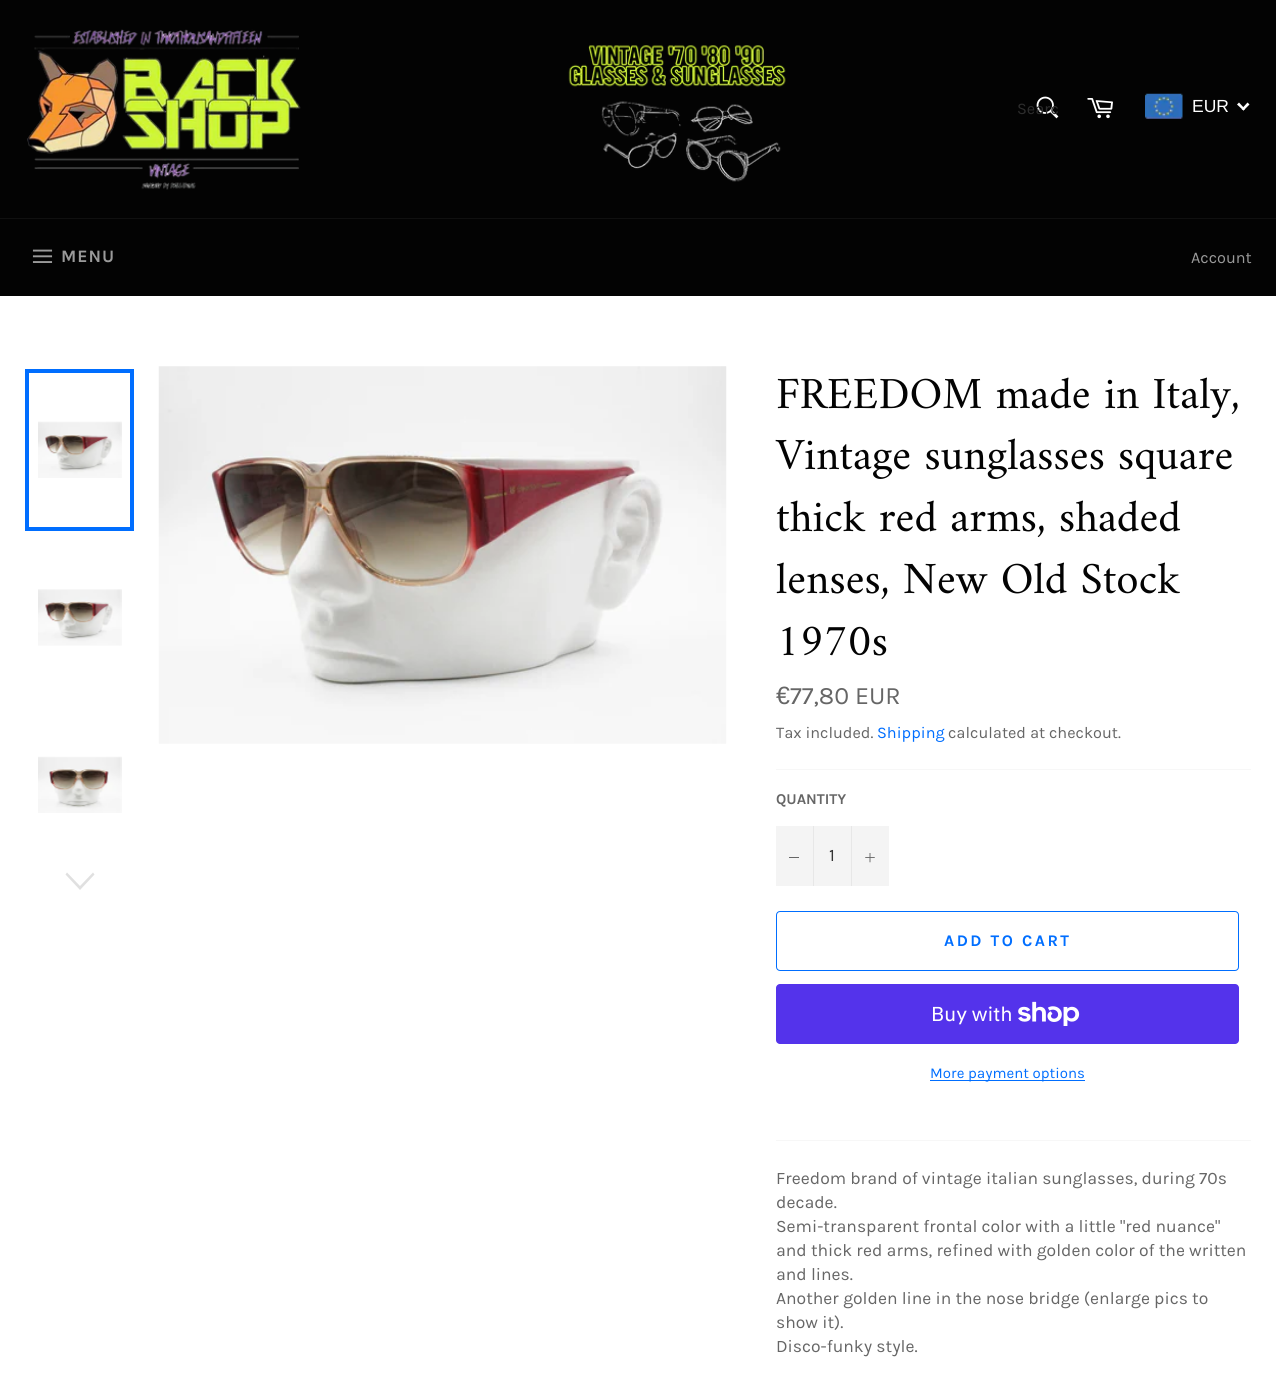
import math
import cairo

surface = cairo.ImageSurface(cairo.FORMAT_RGB24, 1276, 1389)
cr = cairo.Context(surface)
options = cairo.FontOptions()
options.set_hint_metrics(cairo.HINT_METRICS_OFF)
options.set_hint_style(cairo.HINT_STYLE_NONE)
cr.set_font_options(options)
cr.set_miter_limit(4)


def rgb(code):
    cr.set_source_rgb(*(v / 255 for v in bytes.fromhex(code[-6:])))


def tracked(x, y, s, letter, word):
    cr.move_to(x, y)
    for ch in s:
        cr.show_text(ch)
        cr.rel_move_to(letter + word * (ch == ' '), 0)


def rrect(x, y, w, h, r):
    cr.new_sub_path()
    for i, (u, v) in enumerate([(x + w - r, y + h - r), (x + r, y + h - r), (x + r, y + r), (x + w - r, y + r)]):
        cr.arc(u, v, r, i * math.pi / 2, (i + 1) * math.pi / 2)
    cr.close_path()


def image(path, x, y, w, h):
    cr.save()
    cr.set_source_surface(cairo.ImageSurface.create_from_png(path), x, y)
    cr.rectangle(x, y, w, h)
    cr.fill()
    cr.restore()


rgb("#030303")
cr.paint()
image("img/1.png", 27, 29, 759, 161)
image("img/2.png", 1036, 96, 23, 23)
image("img/3.png", 1087, 98, 26, 21)
image("img/4.png", 1145, 93, 38, 26)
rgb("#ffffff")
cr.new_path()
cr.move_to(1247.5, 102.5)
cr.line_to(1249.5, 104.5)
cr.line_to(1243.5, 110.5)
cr.line_to(1241.5, 109)
cr.close_path()
cr.fill()
cr.new_path()
cr.move_to(1239, 102.5)
cr.line_to(1245, 109)
cr.line_to(1243.5, 110.5)
cr.line_to(1237, 104.5)
cr.close_path()
cr.fill()
rgb("#101010")
cr.rectangle(0, 218, 1276, 1)
cr.fill()
image("img/5.png", 32, 249, 21, 14)
rgb("#ffffff")
cr.rectangle(0, 296, 1276, 1093)
cr.fill()
image("img/6.png", 38, 421, 84, 57)
cr.rectangle(27, 371, 105, 158)
rgb("#006eff")
cr.set_line_width(4)
cr.stroke()
image("img/7.png", 38, 589, 84, 57)
image("img/8.png", 38, 756, 84, 57)
rgb("#e0e0e0")
cr.new_path()
cr.move_to(93, 872.5)
cr.line_to(94.5, 874.5)
cr.line_to(80, 890)
cr.line_to(65.5, 874.5)
cr.line_to(67, 872.5)
cr.line_to(80, 886)
cr.close_path()
cr.fill()
image("img/9.png", 158, 366, 569, 378)
for x, y, w, h, color in [
    (776, 769, 475, 1, "#f7f7f7"),
    (776, 826, 113, 60, "#f4f4f4"),
    (813, 826, 1, 60, "#e7e7e7"),
    (789, 857, 10, 1, "#666666"),
    (851, 826, 1, 60, "#e7e7e7"),
]:
    rgb(color)
    cr.rectangle(x, y, w, h)
    cr.fill()
image("img/10.png", 865, 853, 10, 10)
rrect(776.5, 911.5, 462, 59, 3.5)
rgb("#006eff")
cr.set_line_width(1)
cr.stroke()
rgb("#5433eb")
rrect(776, 984, 463, 60, 4)
cr.fill()
image("img/11.png", 1018, 1001, 62, 25)
rgb("#006eff")
cr.rectangle(930, 1080, 155, 1)
cr.fill()
rgb("#f7f7f7")
cr.rectangle(776, 1140, 475, 1)
cr.fill()
cr.select_font_face("Karla")
cr.set_font_size(16.25)
rgb("#2d2d2d")
cr.move_to(1017, 114)
cr.show_text("Searc")
cr.select_font_face("Liberation Sans")
cr.set_font_size(17.5)
rgb("#ffffff")
cr.move_to(1192, 112)
cr.show_text("EUR")
cr.select_font_face("Karla", cairo.FONT_SLANT_NORMAL, cairo.FONT_WEIGHT_BOLD)
rgb("#9a9a9a")
tracked(61, 262, "MENU", 1, 0)
cr.select_font_face("Karla")
cr.set_font_size(16.25)
cr.move_to(1191, 263)
cr.show_text("Account")
cr.select_font_face("Amiri")
cr.set_font_size(45)
rgb("#030303")
for x, y, s in [
    (776, 408, "FREEDOM made in Italy,"),
    (776, 469, "Vintage sunglasses square"),
    (776, 531, "thick red arms, shaded"),
    (776, 593, "lenses, New Old Stock"),
    (776, 655, "1970s"),
]:
    cr.move_to(x, y)
    cr.show_text(s)
cr.select_font_face("Liberation Sans")
cr.set_font_size(25)
rgb("#666666")
cr.move_to(776, 704)
cr.show_text("€")
cr.select_font_face("Karla")
cr.move_to(790, 704)
cr.show_text("77,80 EUR")
cr.set_font_size(16.25)
cr.move_to(776, 738)
cr.show_text("Tax included.")
rgb("#006eff")
cr.move_to(877, 738)
cr.show_text("Shipping")
rgb("#666666")
cr.move_to(948, 738)
cr.show_text("calculated at checkout.")
cr.select_font_face("Karla", cairo.FONT_SLANT_NORMAL, cairo.FONT_WEIGHT_BOLD)
cr.set_font_size(15)
cr.move_to(776, 804)
cr.show_text("QUANTITY")
cr.select_font_face("Karla")
cr.set_font_size(17.5)
rgb("#333333")
cr.move_to(829, 861)
cr.show_text("1")
cr.select_font_face("Karla", cairo.FONT_SLANT_NORMAL, cairo.FONT_WEIGHT_BOLD)
cr.set_font_size(16.25)
rgb("#006eff")
tracked(944, 946, "ADD TO CART", 2.5, 0)
cr.select_font_face("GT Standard")
cr.set_font_size(20)
rgb("#ffffff")
cr.move_to(931, 1021)
cr.show_text("Buy with")
cr.select_font_face("Karla")
cr.set_font_size(15)
rgb("#006eff")
cr.move_to(930, 1078)
cr.show_text("More payment options")
cr.set_font_size(17.5)
rgb("#666666")
for x, y, s in [
    (776, 1184, "Freedom brand of vintage italian sunglasses, during 70s"),
    (776, 1208, "decade."),
    (776, 1232, "Semi-transparent frontal color with a little \"red nuance\""),
    (776, 1256, "and thick red arms, refined with golden color of the written"),
    (776, 1280, "and lines."),
    (776, 1304, "Another golden line in the nose bridge (enlarge pics to"),
    (776, 1328, "show it)."),
    (776, 1352, "Disco-funky style."),
]:
    cr.move_to(x, y)
    cr.show_text(s)
surface.write_to_png("page.png")
